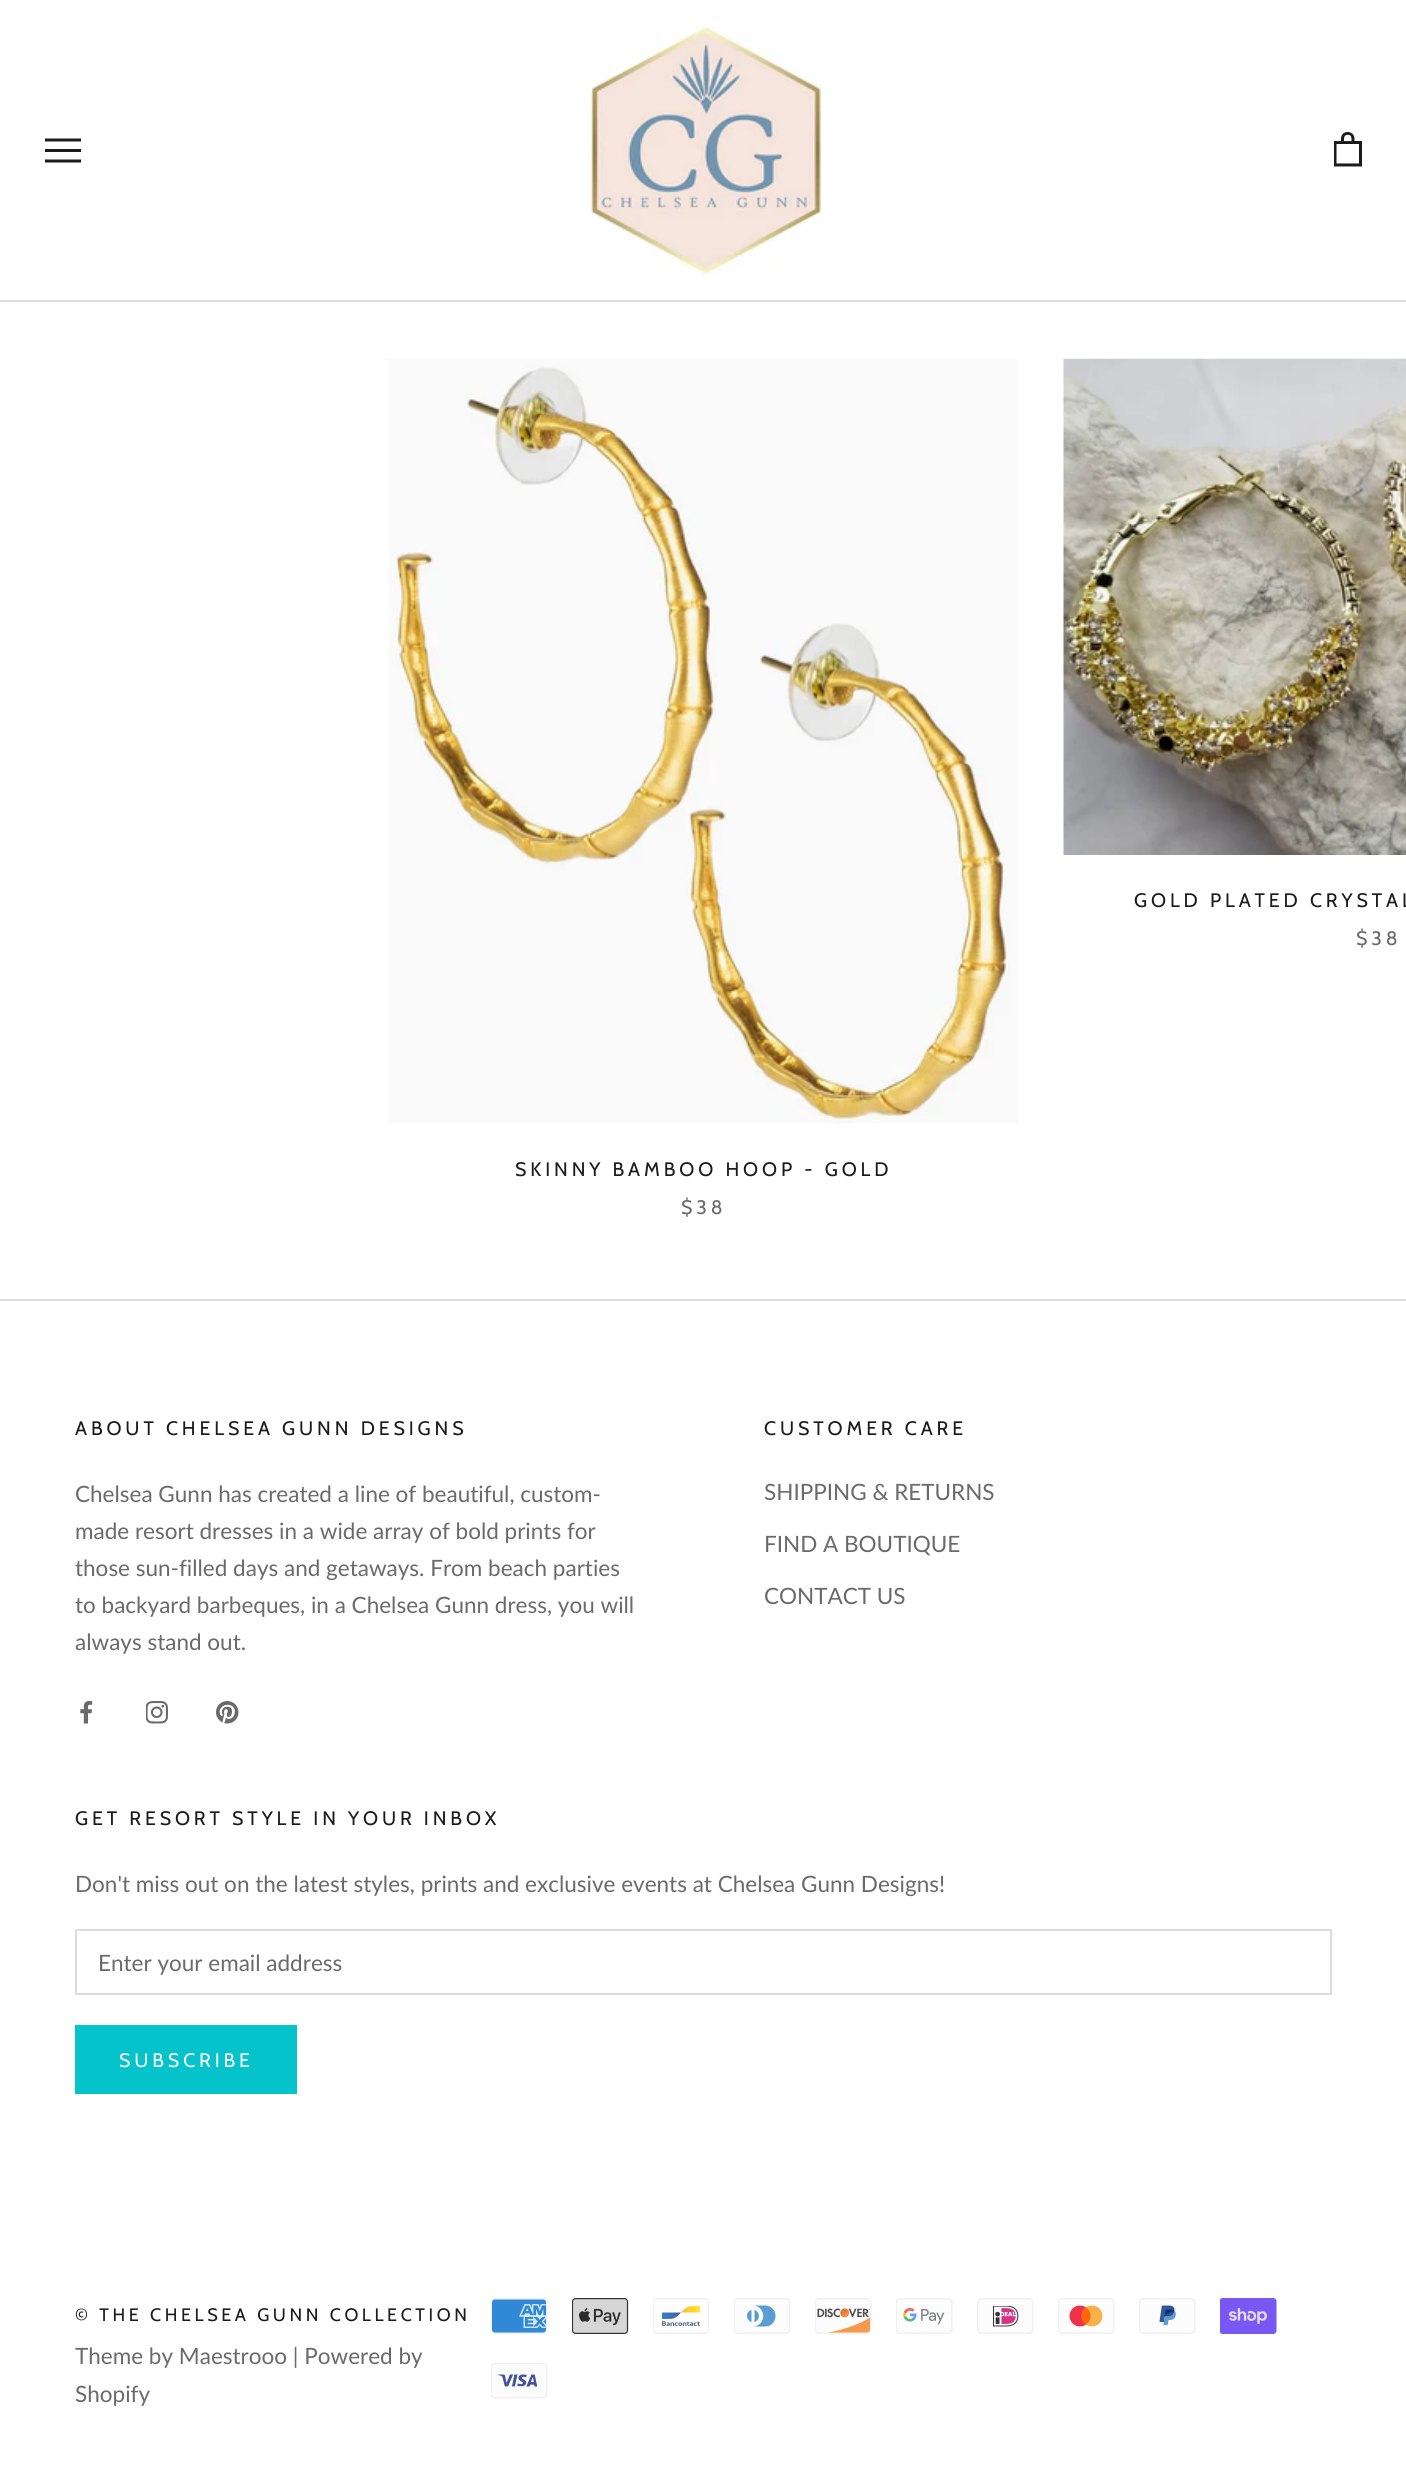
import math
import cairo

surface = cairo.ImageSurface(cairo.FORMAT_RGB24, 1406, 2480)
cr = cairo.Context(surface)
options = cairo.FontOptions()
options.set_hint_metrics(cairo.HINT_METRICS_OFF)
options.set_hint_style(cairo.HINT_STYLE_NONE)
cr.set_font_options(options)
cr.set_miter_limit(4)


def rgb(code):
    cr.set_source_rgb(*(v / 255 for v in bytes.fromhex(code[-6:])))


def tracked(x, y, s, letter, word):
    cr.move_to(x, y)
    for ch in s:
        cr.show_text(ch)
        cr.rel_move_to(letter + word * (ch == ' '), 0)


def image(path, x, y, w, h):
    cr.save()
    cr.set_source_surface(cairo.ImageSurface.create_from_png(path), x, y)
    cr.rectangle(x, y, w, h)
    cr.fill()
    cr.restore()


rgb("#ffffff")
cr.paint()
rgb("#dddddd")
cr.rectangle(0, 300, 1406, 2)
cr.fill()
rgb("#1c1b1b")
cr.new_path()
cr.move_to(45, 162.5)
cr.line_to(45, 159.5)
cr.line_to(81, 159.5)
cr.line_to(81, 162.5)
cr.close_path()
cr.move_to(45, 149)
cr.line_to(81, 149)
cr.line_to(81, 152)
cr.line_to(45, 152)
cr.close_path()
cr.move_to(45, 138.5)
cr.line_to(81, 138.5)
cr.line_to(81, 141.5)
cr.line_to(45, 141.5)
cr.close_path()
cr.fill()
image("img/1.png", 588, 27, 234, 248)
image("img/2.png", 1334, 132, 28, 35)
image("img/3.png", 1063, 358, 343, 497)
image("img/4.png", 388, 359, 630, 765)
rgb("#dddddd")
cr.rectangle(0, 1299, 1406, 2)
cr.fill()
image("img/5.png", 80, 1701, 13, 23)
image("img/6.png", 146, 1701, 22, 23)
image("img/7.png", 216, 1701, 23, 23)
cr.rectangle(76, 1930, 1255, 64)
cr.stroke()
cr.rectangle(76, 2026, 220, 67)
rgb("#05c3ca")
cr.stroke()
cr.rectangle(77, 2027, 218, 65)
cr.fill()
image("img/8.png", 491, 2298, 57, 36)
image("img/9.png", 572, 2298, 57, 36)
image("img/10.png", 653, 2298, 57, 36)
image("img/11.png", 734, 2298, 57, 36)
image("img/12.png", 815, 2298, 57, 36)
image("img/13.png", 896, 2298, 57, 36)
image("img/14.png", 977, 2298, 57, 36)
image("img/15.png", 1058, 2298, 57, 36)
image("img/16.png", 1139, 2298, 57, 36)
image("img/17.png", 1220, 2298, 57, 36)
image("img/18.png", 491, 2363, 57, 36)
cr.select_font_face("Cabin")
cr.set_font_size(19.5)
rgb("#1c1b1b")
tracked(1134, 907, "GOLD PLATED CRYSTAL", 3.9, 0)
rgb("#6a6a6a")
tracked(1356, 945, "$38", 3.9, 0)
rgb("#1c1b1b")
tracked(515, 1176, "SKINNY BAMBOO HOOP - GOLD", 3.9, 0)
rgb("#6a6a6a")
tracked(681, 1214, "$38", 3.9, 0)
rgb("#1c1b1b")
tracked(75, 1435, "ABOUT CHELSEA GUNN DESIGNS", 3.9, 0)
cr.select_font_face("Lato")
cr.set_font_size(22.5)
rgb("#6a6a6a")
for x, y, s in [
    (75, 1502, "Chelsea Gunn has created a line of beautiful, custom-"),
    (75, 1539, "made resort dresses in a wide array of bold prints for"),
    (75, 1576, "those sun-filled days and getaways. From beach parties"),
    (75, 1613, "to backyard barbeques, in a Chelsea Gunn dress, you will"),
    (75, 1650, "always stand out."),
]:
    cr.move_to(x, y)
    cr.show_text(s)
cr.select_font_face("Cabin")
cr.set_font_size(19.5)
rgb("#1c1b1b")
tracked(764, 1435, "CUSTOMER CARE", 3.9, 0)
cr.select_font_face("Lato")
cr.set_font_size(22.5)
rgb("#6a6a6a")
for x, y, s in [
    (764, 1500, "SHIPPING & RETURNS"),
    (764, 1552, "FIND A BOUTIQUE"),
    (764, 1604, "CONTACT US"),
]:
    cr.move_to(x, y)
    cr.show_text(s)
cr.select_font_face("Cabin")
cr.set_font_size(19.5)
rgb("#1c1b1b")
tracked(75, 1825, "GET RESORT STYLE IN YOUR INBOX", 3.9, 0)
cr.select_font_face("Lato")
cr.set_font_size(22.5)
rgb("#6a6a6a")
cr.move_to(75, 1892)
cr.show_text("Don't miss out on the latest styles, prints and exclusive events at Chelsea Gunn Designs!")
cr.move_to(98, 1971)
cr.show_text("Enter your email address")
cr.select_font_face("Cabin")
cr.set_font_size(19.5)
rgb("#ffffff")
tracked(119, 2067, "SUBSCRIBE", 3.9, 0)
cr.set_font_size(18)
rgb("#1c1b1b")
tracked(75, 2321, "© THE CHELSEA GUNN COLLECTION", 3.6, 0)
cr.select_font_face("Lato")
cr.set_font_size(22.5)
rgb("#6a6a6a")
cr.move_to(75, 2364)
cr.show_text("Theme by Maestrooo | Powered by")
cr.move_to(75, 2402)
cr.show_text("Shopify")
surface.write_to_png("page.png")
